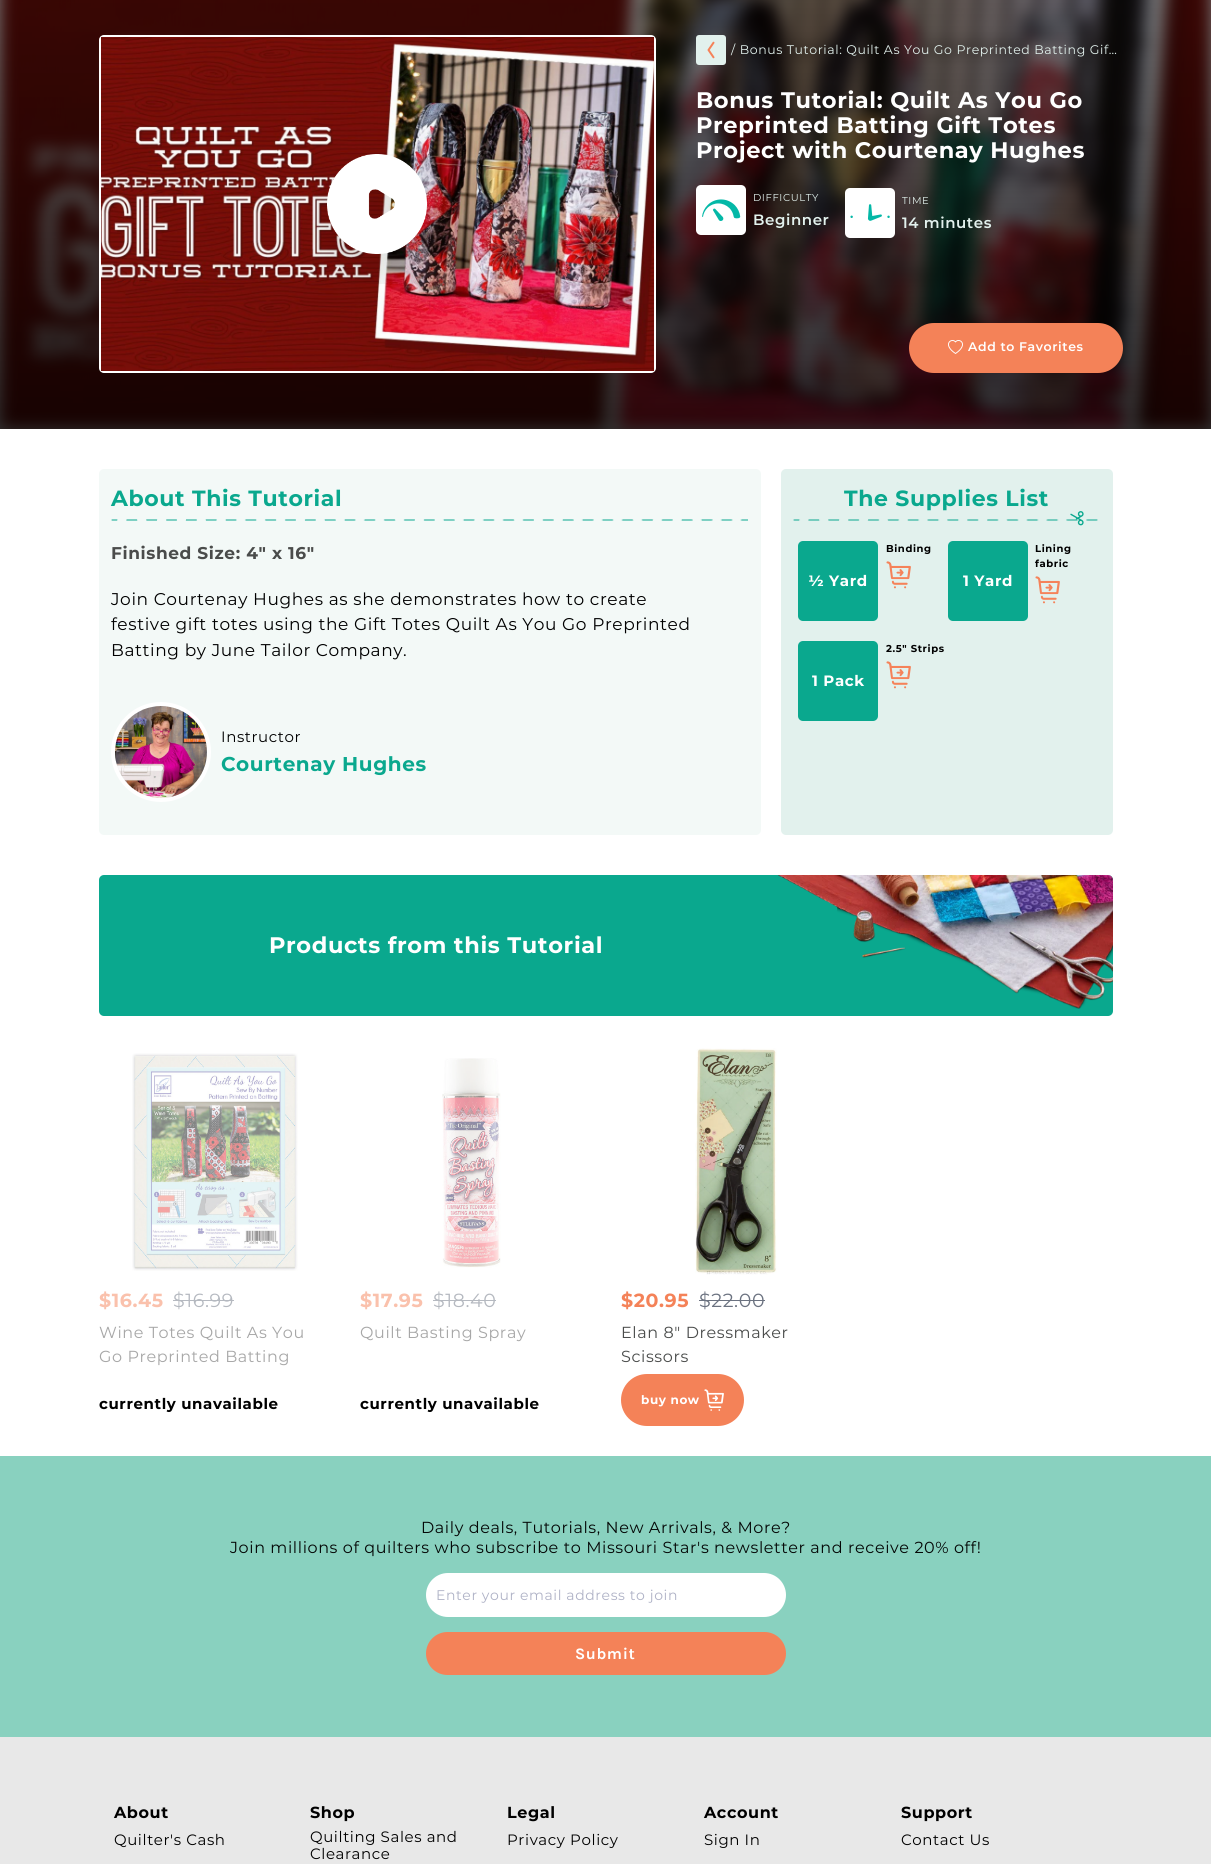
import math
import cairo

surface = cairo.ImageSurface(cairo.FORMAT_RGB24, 1211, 1864)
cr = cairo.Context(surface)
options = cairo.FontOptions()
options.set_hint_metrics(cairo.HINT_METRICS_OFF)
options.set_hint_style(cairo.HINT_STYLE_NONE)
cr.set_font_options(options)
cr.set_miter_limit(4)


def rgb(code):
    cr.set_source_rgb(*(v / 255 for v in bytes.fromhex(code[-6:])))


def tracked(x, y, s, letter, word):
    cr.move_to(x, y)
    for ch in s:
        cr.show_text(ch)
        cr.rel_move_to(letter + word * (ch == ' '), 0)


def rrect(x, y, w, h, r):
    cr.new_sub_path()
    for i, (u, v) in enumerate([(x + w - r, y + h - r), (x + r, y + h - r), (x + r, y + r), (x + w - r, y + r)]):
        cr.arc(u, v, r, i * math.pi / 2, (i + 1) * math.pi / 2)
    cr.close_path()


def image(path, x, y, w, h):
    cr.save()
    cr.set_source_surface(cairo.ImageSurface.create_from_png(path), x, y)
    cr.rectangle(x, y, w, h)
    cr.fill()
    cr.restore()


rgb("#ffffff")
cr.paint()
image("img/1.png", 0, 0, 1211, 429)
gradient = cairo.LinearGradient(606, -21, 606, 429)
gradient.add_color_stop_rgba(0, 0, 0, 0, 0.5)
gradient.add_color_stop_rgba(1, 0, 0, 0, 0.8)
cr.set_source(gradient)
cr.rectangle(0, 0, 1211, 429)
cr.fill()
rrect(100, 36, 555, 336, 4)
rgb("#ffffff")
cr.stroke()
image("img/2.png", 101, 37, 553, 334)
image("img/3.png", 312, 154, 131, 130)
image("img/4.png", 696, 35, 30, 30)
rrect(696, 185, 50, 50, 5)
cr.fill()
image("img/5.png", 702, 199, 39, 22)
rrect(845, 188, 50, 50, 5)
cr.fill()
image("img/6.png", 850, 204, 40, 17)
rgb("#f48258")
rrect(909, 323, 214, 50, 25)
cr.fill()
image("img/7.png", 948, 340, 15, 14)
rgb("#f3f9f7")
rrect(99, 469, 662, 366, 5)
cr.fill()
image("img/8.png", 111, 519, 637, 2)
cr.arc(161, 752, 48, 0, 2 * math.pi)
rgb("#ffffff")
cr.set_line_width(4)
cr.stroke()
image("img/9.png", 115, 706, 92, 92)
rgb("#e2f1ed")
rrect(781, 469, 332, 366, 5)
cr.fill()
image("img/10.png", 793, 519, 305, 2)
image("img/11.png", 1070, 511, 14, 15)
image("img/12.png", 886, 561, 25, 28)
rgb("#0aa88e")
rrect(798, 541, 80, 80, 5)
cr.fill()
image("img/12.png", 1035, 576, 25, 28)
rrect(948, 541, 80, 80, 5)
cr.fill()
image("img/12.png", 886, 661, 25, 28)
rrect(798, 641, 80, 80, 5)
cr.fill()
rrect(99, 875, 1014, 141, 5)
cr.fill()
image("img/13.png", 778, 875, 335, 134)
image("img/14.png", 132, 1053, 166, 218)
rgb("#b5b9c0")
cr.rectangle(173, 1300, 61, 1)
cr.fill()
image("img/15.png", 442, 1058, 59, 210)
cr.rectangle(433, 1300, 63, 1)
cr.fill()
image("img/16.png", 695, 1048, 82, 227)
rgb("#6b7280")
cr.rectangle(699, 1300, 66, 1)
cr.fill()
rgb("#f48258")
rrect(621, 1374, 123, 52, 26)
cr.fill()
image("img/17.png", 704, 1389, 20, 22)
rgb("#e8e8e8")
cr.rectangle(0, 1737, 1211, 127)
cr.fill()
rgb("#89d1bf")
cr.rectangle(0, 1456, 1211, 281)
cr.fill()
rgb("#ffffff")
rrect(426, 1573, 360, 44, 22)
cr.fill()
rgb("#f48258")
rrect(427, 1633, 358, 41, 20.5)
cr.fill_preserve()
cr.set_line_width(2)
cr.stroke()
cr.select_font_face("Montserrat")
cr.set_font_size(12.5)
rgb("#e2f1ed")
tracked(731, 54, "/ Bonus Tutorial: Quilt As You Go Preprinted Batting Gif…", 0.6, 0)
cr.select_font_face("Montserrat", cairo.FONT_SLANT_NORMAL, cairo.FONT_WEIGHT_BOLD)
cr.set_font_size(22.5)
rgb("#ffffff")
for x, y, s in [
    (696, 108, "Bonus Tutorial: Quilt As You Go"),
    (696, 133, "Preprinted Batting Gift Totes"),
    (696, 158, "Project with Courtenay Hughes"),
]:
    tracked(x, y, s, 0.6, 0)
cr.select_font_face("Montserrat")
cr.set_font_size(10)
rgb("#e2f1ed")
tracked(753, 201, "DIFFICULTY", 0.6, 0)
cr.select_font_face("Montserrat SemiBold")
cr.set_font_size(15)
tracked(753, 225, "Beginner", 0.6, 0)
cr.select_font_face("Montserrat")
cr.set_font_size(10)
tracked(902, 204, "TIME", 0.6, 0)
cr.select_font_face("Montserrat SemiBold")
cr.set_font_size(15)
tracked(902, 228, "14 minutes", 0.6, 0)
cr.set_font_size(12.5)
rgb("#ffffff")
tracked(968, 351, "Add to Favorites", 0.6, 0)
cr.select_font_face("Montserrat", cairo.FONT_SLANT_NORMAL, cairo.FONT_WEIGHT_BOLD)
cr.set_font_size(22)
rgb("#0aa88e")
tracked(111, 506, "About This Tutorial", 0.6, 0)
cr.set_font_size(17)
rgb("#4a4c4b")
tracked(111, 559, "Finished Size: 4\" x 16\"", 0.6, 0)
cr.select_font_face("Montserrat")
rgb("#000000")
for x, y, s in [
    (111, 605, "Join Courtenay Hughes as she demonstrates how to create"),
    (111, 630, "festive gift totes using the Gift Totes Quilt As You Go Preprinted"),
    (111, 656, "Batting by June Tailor Company."),
]:
    tracked(x, y, s, 0.6, 0)
cr.set_font_size(15)
tracked(221, 742, "Instructor", 0.6, 0)
cr.select_font_face("Montserrat", cairo.FONT_SLANT_NORMAL, cairo.FONT_WEIGHT_BOLD)
cr.set_font_size(20)
rgb("#0aa88e")
tracked(221, 771, "Courtenay Hughes", 0.6, 0)
cr.set_font_size(22)
tracked(844, 506, "The Supplies List", 0.6, 0)
cr.set_font_size(10)
rgb("#000000")
tracked(886, 552, "Binding", 0.6, 0)
cr.set_font_size(15)
rgb("#ffffff")
tracked(808, 586, "½ Yard", 0.6, 0)
cr.set_font_size(10)
rgb("#000000")
tracked(1035, 552, "Lining", 0.6, 0)
tracked(1035, 567, "fabric", 0.6, 0)
cr.set_font_size(15)
rgb("#ffffff")
tracked(963, 586, "1 Yard", 0.6, 0)
cr.set_font_size(10)
rgb("#000000")
tracked(886, 652, "2.5\" Strips", 0.6, 0)
cr.set_font_size(15)
rgb("#ffffff")
tracked(812, 686, "1 Pack", 0.6, 0)
cr.set_font_size(22.5)
tracked(269, 953, "Products from this Tutorial", 0.6, 0)
cr.set_font_size(19)
rgb("#fac1ac")
tracked(99, 1307, "$16.45", 0.6, 0)
cr.select_font_face("Montserrat")
rgb("#b5b9c0")
tracked(173, 1307, "$16.99", 0.6, 0)
cr.set_font_size(16)
rgb("#a7a7a7")
tracked(99, 1338, "Wine Totes Quilt As You", 0.6, 0)
tracked(99, 1362, "Go Preprinted Batting", 0.6, 0)
cr.select_font_face("Montserrat", cairo.FONT_SLANT_NORMAL, cairo.FONT_WEIGHT_BOLD)
cr.set_font_size(15)
rgb("#000000")
tracked(99, 1409, "currently unavailable", 0.6, 0)
cr.set_font_size(19)
rgb("#fac1ac")
tracked(360, 1307, "$17.95", 0.6, 0)
cr.select_font_face("Montserrat")
rgb("#b5b9c0")
tracked(433, 1307, "$18.40", 0.6, 0)
cr.set_font_size(16)
rgb("#a7a7a7")
tracked(360, 1338, "Quilt Basting Spray", 0.6, 0)
cr.select_font_face("Montserrat", cairo.FONT_SLANT_NORMAL, cairo.FONT_WEIGHT_BOLD)
cr.set_font_size(15)
rgb("#000000")
tracked(360, 1409, "currently unavailable", 0.6, 0)
cr.set_font_size(19)
rgb("#f48258")
tracked(621, 1307, "$20.95", 0.6, 0)
cr.select_font_face("Montserrat")
rgb("#6b7280")
tracked(699, 1307, "$22.00", 0.6, 0)
cr.set_font_size(16)
rgb("#4a4c4b")
tracked(621, 1338, "Elan 8\" Dressmaker", 0.6, 0)
tracked(621, 1362, "Scissors", 0.6, 0)
cr.select_font_face("Montserrat", cairo.FONT_SLANT_NORMAL, cairo.FONT_WEIGHT_BOLD)
cr.set_font_size(12)
rgb("#ffffff")
tracked(641, 1404, "buy now", 0.6, 0)
cr.select_font_face("Montserrat")
cr.set_font_size(16)
rgb("#040706")
tracked(421, 1533, "Daily deals, Tutorials, New Arrivals, & More?", 0.6, 0)
tracked(230, 1553, "Join millions of quilters who subscribe to Missouri Star's newsletter and receive 20% off!", 0.6, 0)
cr.set_font_size(14)
rgb("#afb2c6")
tracked(436, 1600, "Enter your email address to join", 0.6, 0)
cr.select_font_face("Karla", cairo.FONT_SLANT_NORMAL, cairo.FONT_WEIGHT_BOLD)
cr.set_font_size(16)
rgb("#ffffff")
tracked(575, 1659, "Submit", 0.6, 0)
cr.select_font_face("Montserrat", cairo.FONT_SLANT_NORMAL, cairo.FONT_WEIGHT_BOLD)
rgb("#000000")
tracked(114, 1818, "About", 0.6, 0)
cr.select_font_face("Montserrat")
cr.set_font_size(15)
tracked(114, 1845, "Quilter's Cash", 0.6, 0)
cr.select_font_face("Montserrat", cairo.FONT_SLANT_NORMAL, cairo.FONT_WEIGHT_BOLD)
cr.set_font_size(16)
tracked(310, 1818, "Shop", 0.6, 0)
cr.select_font_face("Montserrat")
cr.set_font_size(15)
tracked(310, 1842, "Quilting Sales and", 0.6, 0)
tracked(310, 1859, "Clearance", 0.6, 0)
cr.select_font_face("Montserrat", cairo.FONT_SLANT_NORMAL, cairo.FONT_WEIGHT_BOLD)
cr.set_font_size(16)
tracked(507, 1818, "Legal", 0.6, 0)
cr.select_font_face("Montserrat")
cr.set_font_size(15)
tracked(507, 1845, "Privacy Policy", 0.6, 0)
cr.select_font_face("Montserrat", cairo.FONT_SLANT_NORMAL, cairo.FONT_WEIGHT_BOLD)
cr.set_font_size(16)
tracked(704, 1818, "Account", 0.6, 0)
cr.select_font_face("Montserrat")
cr.set_font_size(15)
tracked(704, 1845, "Sign In", 0.6, 0)
cr.select_font_face("Montserrat", cairo.FONT_SLANT_NORMAL, cairo.FONT_WEIGHT_BOLD)
cr.set_font_size(16)
tracked(901, 1818, "Support", 0.6, 0)
cr.select_font_face("Montserrat")
cr.set_font_size(15)
tracked(901, 1845, "Contact Us", 0.6, 0)
surface.write_to_png("page.png")
